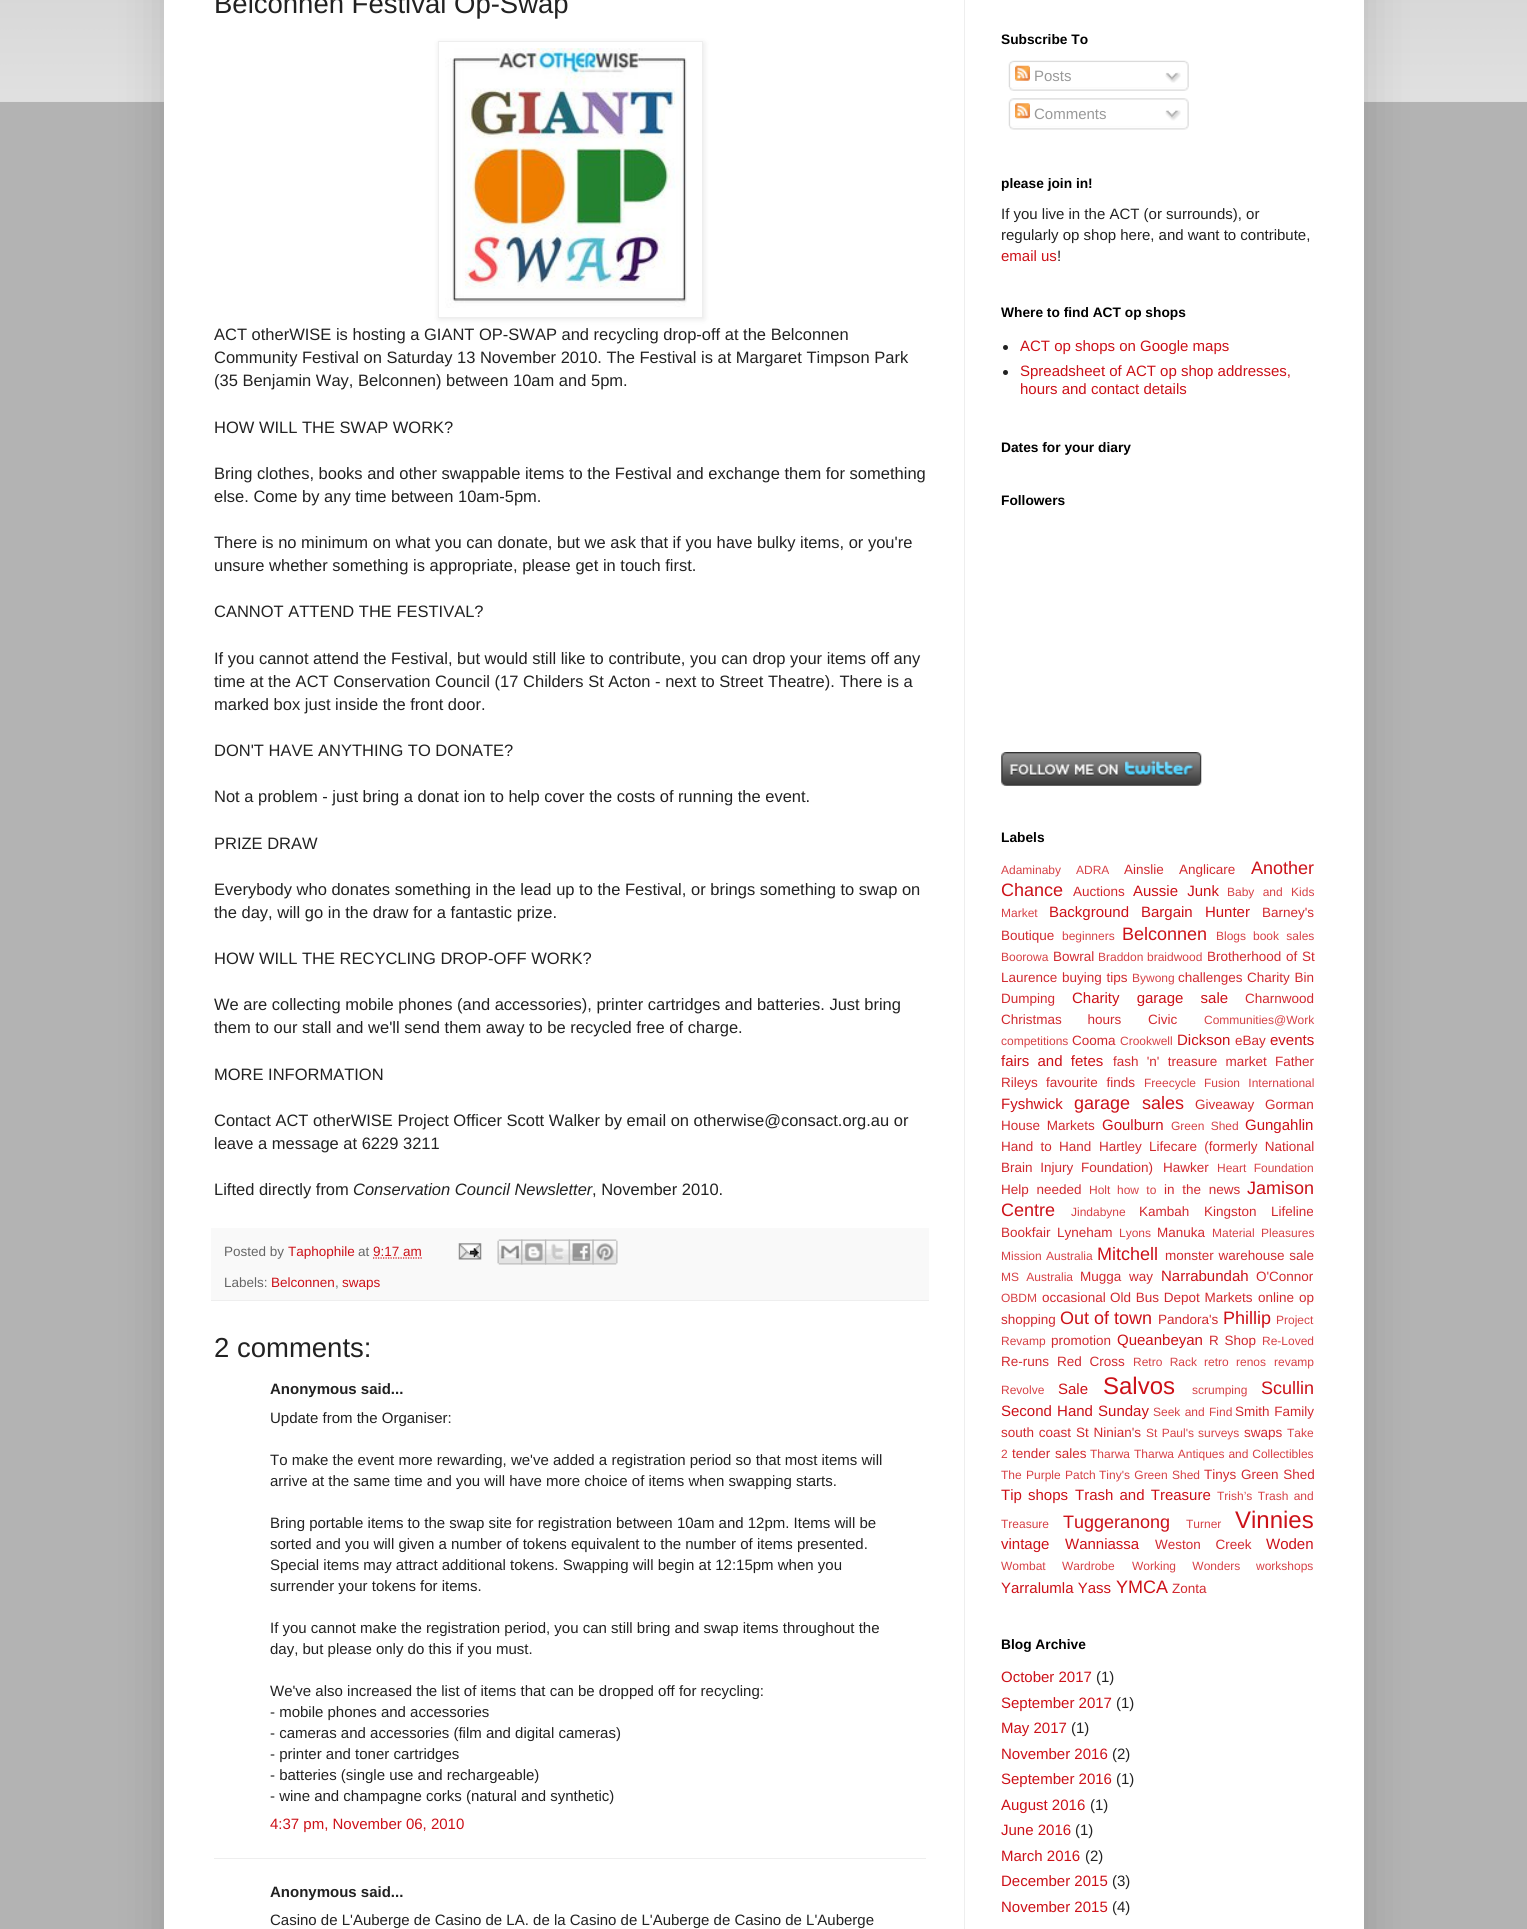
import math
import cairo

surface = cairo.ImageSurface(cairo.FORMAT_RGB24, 1527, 1929)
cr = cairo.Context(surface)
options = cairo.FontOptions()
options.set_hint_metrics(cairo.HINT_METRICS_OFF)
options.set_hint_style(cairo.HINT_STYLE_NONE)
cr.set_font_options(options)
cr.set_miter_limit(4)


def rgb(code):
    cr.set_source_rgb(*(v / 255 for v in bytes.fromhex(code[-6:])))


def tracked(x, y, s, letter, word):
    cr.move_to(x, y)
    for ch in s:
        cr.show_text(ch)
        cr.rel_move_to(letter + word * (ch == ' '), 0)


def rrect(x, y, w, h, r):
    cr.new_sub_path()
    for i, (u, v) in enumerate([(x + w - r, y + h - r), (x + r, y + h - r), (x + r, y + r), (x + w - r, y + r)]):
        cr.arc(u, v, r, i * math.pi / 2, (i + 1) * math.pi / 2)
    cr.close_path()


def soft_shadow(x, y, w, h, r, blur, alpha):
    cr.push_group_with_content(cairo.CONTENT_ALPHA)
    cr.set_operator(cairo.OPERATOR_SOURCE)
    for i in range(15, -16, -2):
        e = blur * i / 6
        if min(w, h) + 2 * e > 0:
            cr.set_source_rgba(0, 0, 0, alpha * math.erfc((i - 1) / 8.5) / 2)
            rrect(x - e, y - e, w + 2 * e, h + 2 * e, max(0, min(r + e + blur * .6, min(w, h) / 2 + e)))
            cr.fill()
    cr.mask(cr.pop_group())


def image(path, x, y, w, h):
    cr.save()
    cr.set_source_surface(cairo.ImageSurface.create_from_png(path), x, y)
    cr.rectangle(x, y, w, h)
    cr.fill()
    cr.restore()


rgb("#b3b3b3")
cr.paint()
image("img/1.png", 0, 0, 1527, 102)
rgb("#000000")
soft_shadow(164, -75, 1200, 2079, 0, 25, 0.15)
rgb("#ffffff")
cr.rectangle(164, 0, 1200, 1929)
cr.fill()
rgb("#000000")
soft_shadow(439, 43, 265, 276, 0, 3, 0.1)
rgb("#ffffff")
cr.rectangle(438.5, 41.5, 264, 276)
cr.fill_preserve()
rgb("#eeeeee")
cr.set_line_width(1)
cr.stroke()
image("img/2.png", 445, 48, 242, 260)
rgb("#f9f9f9")
cr.rectangle(211, 1228, 718, 72)
cr.fill()
rgb("#eeeeee")
cr.rectangle(211, 1300, 718, 1)
cr.fill()
cr.new_path()
cr.move_to(373, 1258)
cr.line_to(422, 1258)
rgb("#cc1118")
cr.set_line_width(1.2)
cr.set_dash([1.25, 1.25])
cr.stroke()
image("img/3.png", 458, 1243, 24, 17)
image("img/4.png", 497, 1239, 26, 26)
image("img/5.png", 521, 1239, 26, 26)
image("img/6.png", 545, 1239, 25, 26)
image("img/7.png", 568, 1239, 26, 26)
image("img/8.png", 592, 1239, 26, 26)
rgb("#eeeeee")
cr.rectangle(214, 1858, 712, 1)
cr.fill()
image("img/9.png", 1008, 60, 181, 27)
image("img/10.png", 1015, 65, 15, 16)
image("img/11.png", 1165, 72, 16, 11)
image("img/12.png", 1009, 87, 180, 4)
image("img/13.png", 1008, 98, 181, 28)
image("img/14.png", 1015, 103, 15, 16)
image("img/15.png", 1165, 110, 16, 11)
image("img/16.png", 1009, 125, 180, 5)
rgb("#222222")
cr.arc(1005.5, 347.5, 2.5, 0, 2 * math.pi)
cr.fill()
cr.arc(1005.5, 372.5, 2.5, 0, 2 * math.pi)
cr.fill()
image("img/17.png", 1001, 752, 201, 34)
rgb("#eeeeee")
cr.rectangle(964, 0, 1, 1929)
cr.fill()
cr.select_font_face("Liberation Sans")
cr.set_font_size(27.5)
rgb("#222222")
cr.move_to(214, 13)
cr.show_text("Belconnen Festival Op-Swap")
cr.set_font_size(16.5)
for x, y, s in [
    (214, 340, "ACT otherWISE is hosting a GIANT OP-SWAP and recycling drop-off at the Belconnen"),
    (214, 363, "Community Festival on Saturday 13 November 2010. The Festival is at Margaret Timpson Park"),
    (214, 386, "(35 Benjamin Way, Belconnen) between 10am and 5pm."),
    (214, 433, "HOW WILL THE SWAP WORK?"),
    (214, 479, "Bring clothes, books and other swappable items to the Festival and exchange them for something"),
    (214, 502, "else. Come by any time between 10am-5pm."),
    (214, 548, "There is no minimum on what you can donate, but we ask that if you have bulky items, or you're"),
    (214, 571, "unsure whether something is appropriate, please get in touch first."),
    (214, 617, "CANNOT ATTEND THE FESTIVAL?"),
    (214, 664, "If you cannot attend the Festival, but would still like to contribute, you can drop your items off any"),
    (214, 687, "time at the ACT Conservation Council (17 Childers St Acton - next to Street Theatre). There is a"),
    (214, 710, "marked box just inside the front door."),
    (214, 756, "DON'T HAVE ANYTHING TO DONATE?"),
    (214, 802, "Not a problem - just bring a donat ion to help cover the costs of running the event."),
    (214, 849, "PRIZE DRAW"),
    (214, 895, "Everybody who donates something in the lead up to the Festival, or brings something to swap on"),
    (214, 918, "the day, will go in the draw for a fantastic prize."),
    (214, 964, "HOW WILL THE RECYCLING DROP-OFF WORK?"),
    (214, 1010, "We are collecting mobile phones (and accessories), printer cartridges and batteries. Just bring"),
    (214, 1033, "them to our stall and we'll send them away to be recycled free of charge."),
    (214, 1080, "MORE INFORMATION"),
    (214, 1126, "Contact ACT otherWISE Project Officer Scott Walker by email on otherwise@consact.org.au or"),
    (214, 1149, "leave a message at 6229 3211"),
    (214, 1195, "Lifted directly from"),
]:
    cr.move_to(x, y)
    cr.show_text(s)
cr.select_font_face("Liberation Sans", cairo.FONT_SLANT_ITALIC)
cr.move_to(353, 1195)
cr.show_text("Conservation Council Newsletter")
cr.select_font_face("Liberation Sans")
cr.move_to(592, 1195)
cr.show_text(", November 2010.")
cr.set_font_size(13.5)
rgb("#666666")
cr.move_to(224, 1256)
cr.show_text("Posted by")
rgb("#cc1118")
cr.move_to(288, 1256)
cr.show_text("Taphophile")
rgb("#666666")
cr.move_to(358, 1256)
cr.show_text("at")
rgb("#cc1118")
cr.move_to(373, 1256)
cr.show_text("9:17 am")
rgb("#666666")
cr.move_to(224, 1287)
cr.show_text("Labels:")
rgb("#cc1118")
cr.move_to(271, 1287)
cr.show_text("Belconnen")
rgb("#666666")
cr.move_to(335, 1287)
cr.show_text(",")
rgb("#cc1118")
cr.move_to(342, 1287)
cr.show_text("swaps")
cr.set_font_size(27.5)
rgb("#222222")
cr.move_to(214, 1357)
cr.show_text("2 comments:")
cr.select_font_face("Liberation Sans", cairo.FONT_SLANT_NORMAL, cairo.FONT_WEIGHT_BOLD)
cr.set_font_size(15)
cr.move_to(270, 1394)
cr.show_text("Anonymous said...")
cr.select_font_face("Liberation Sans")
for x, y, s in [
    (270, 1423, "Update from the Organiser:"),
    (270, 1465, "To make the event more rewarding, we've added a registration period so that most items will"),
    (270, 1486, "arrive at the same time and you will have more choice of items when swapping starts."),
    (270, 1528, "Bring portable items to the swap site for registration between 10am and 12pm. Items will be"),
    (270, 1549, "sorted and you will given a number of tokens equivalent to the number of items presented."),
    (270, 1570, "Special items may attract additional tokens. Swapping will begin at 12:15pm when you"),
    (270, 1591, "surrender your tokens for items."),
    (270, 1633, "If you cannot make the registration period, you can still bring and swap items throughout the"),
    (270, 1654, "day, but please only do this if you must."),
    (270, 1696, "We've also increased the list of items that can be dropped off for recycling:"),
    (270, 1717, "- mobile phones and accessories"),
    (270, 1738, "- cameras and accessories (film and digital cameras)"),
    (270, 1759, "- printer and toner cartridges"),
    (270, 1780, "- batteries (single use and rechargeable)"),
    (270, 1801, "- wine and champagne corks (natural and synthetic)"),
]:
    cr.move_to(x, y)
    cr.show_text(s)
rgb("#cc1118")
cr.move_to(270, 1829)
cr.show_text("4:37 pm, November 06, 2010")
cr.select_font_face("Liberation Sans", cairo.FONT_SLANT_NORMAL, cairo.FONT_WEIGHT_BOLD)
rgb("#222222")
cr.move_to(270, 1897)
cr.show_text("Anonymous said...")
cr.select_font_face("Liberation Sans")
cr.move_to(270, 1925)
cr.show_text("Casino de L'Auberge de Casino de LA. de la Casino de L'Auberge de Casino de L'Auberge")
cr.select_font_face("Liberation Sans", cairo.FONT_SLANT_NORMAL, cairo.FONT_WEIGHT_BOLD)
cr.set_font_size(13.75)
rgb("#000000")
cr.move_to(1001, 44)
cr.show_text("Subscribe To")
cr.select_font_face("Liberation Sans")
cr.set_font_size(15)
rgb("#999999")
cr.move_to(1034, 81)
cr.show_text("Posts")
cr.move_to(1034, 119)
cr.show_text("Comments")
cr.select_font_face("Liberation Sans", cairo.FONT_SLANT_NORMAL, cairo.FONT_WEIGHT_BOLD)
cr.set_font_size(13.75)
rgb("#000000")
cr.move_to(1001, 188)
cr.show_text("please join in!")
cr.select_font_face("Liberation Sans")
cr.set_font_size(15)
rgb("#222222")
cr.move_to(1001, 219)
cr.show_text("If you live in the ACT (or surrounds), or")
cr.move_to(1001, 240)
cr.show_text("regularly op shop here, and want to contribute,")
rgb("#cc1118")
cr.move_to(1001, 261)
cr.show_text("email us")
rgb("#222222")
cr.move_to(1057, 261)
cr.show_text("!")
cr.select_font_face("Liberation Sans", cairo.FONT_SLANT_NORMAL, cairo.FONT_WEIGHT_BOLD)
cr.set_font_size(13.75)
rgb("#000000")
cr.move_to(1001, 317)
cr.show_text("Where to find ACT op shops")
cr.select_font_face("Liberation Sans")
cr.set_font_size(15)
rgb("#cc1118")
for x, y, s in [
    (1020, 351, "ACT op shops on Google maps"),
    (1020, 376, "Spreadsheet of ACT op shop addresses,"),
    (1020, 394, "hours and contact details"),
]:
    cr.move_to(x, y)
    cr.show_text(s)
cr.select_font_face("Liberation Sans", cairo.FONT_SLANT_NORMAL, cairo.FONT_WEIGHT_BOLD)
cr.set_font_size(13.75)
rgb("#000000")
for x, y, s in [
    (1001, 452, "Dates for your diary"),
    (1001, 505, "Followers"),
    (1001, 842, "Labels"),
]:
    cr.move_to(x, y)
    cr.show_text(s)
cr.select_font_face("Liberation Sans")
cr.set_font_size(12)
rgb("#d64146")
cr.move_to(1001, 874)
cr.show_text("Adaminaby")
cr.move_to(1076, 874)
cr.show_text("ADRA")
cr.set_font_size(13.5)
rgb("#d1292f")
cr.move_to(1124, 874)
cr.show_text("Ainslie")
cr.move_to(1179, 874)
cr.show_text("Anglicare")
cr.set_font_size(18)
rgb("#cc1118")
cr.move_to(1251, 874)
cr.show_text("Another")
cr.move_to(1001, 896)
cr.show_text("Chance")
cr.set_font_size(13.5)
rgb("#d1292f")
cr.move_to(1073, 896)
cr.show_text("Auctions")
cr.set_font_size(15)
rgb("#cc1118")
tracked(1133, 896, "Aussie Junk", 0, 5)
cr.set_font_size(12)
rgb("#d64146")
tracked(1227, 896, "Baby and Kids", 0, 5)
cr.move_to(1001, 917)
cr.show_text("Market")
cr.set_font_size(15)
rgb("#cc1118")
cr.move_to(1049, 917)
cr.show_text("Background")
tracked(1141, 917, "Bargain Hunter", 0, 8)
cr.set_font_size(13.5)
rgb("#d1292f")
cr.move_to(1262, 917)
cr.show_text("Barney's")
cr.move_to(1001, 940)
cr.show_text("Boutique")
cr.set_font_size(12)
rgb("#d64146")
cr.move_to(1062, 940)
cr.show_text("beginners")
cr.set_font_size(18)
rgb("#cc1118")
cr.move_to(1122, 940)
cr.show_text("Belconnen")
cr.set_font_size(12)
rgb("#d64146")
cr.move_to(1216, 940)
cr.show_text("Blogs")
tracked(1253, 940, "book sales", 0, 4)
cr.move_to(1001, 961)
cr.show_text("Boorowa")
cr.set_font_size(13.5)
rgb("#d1292f")
cr.move_to(1053, 961)
cr.show_text("Bowral")
cr.set_font_size(12)
rgb("#d64146")
cr.move_to(1098, 961)
cr.show_text("Braddon")
cr.move_to(1147, 961)
cr.show_text("braidwood")
cr.set_font_size(13.5)
rgb("#d1292f")
tracked(1207, 961, "Brotherhood of St", 0, 1)
cr.move_to(1001, 982)
cr.show_text("Laurence")
tracked(1062, 982, "buying tips", 0, 1)
cr.set_font_size(12)
rgb("#d64146")
cr.move_to(1132, 982)
cr.show_text("Bywong")
cr.set_font_size(13.5)
rgb("#d1292f")
cr.move_to(1178, 982)
cr.show_text("challenges")
tracked(1247, 982, "Charity Bin", 0, 1)
cr.move_to(1001, 1003)
cr.show_text("Dumping")
cr.set_font_size(15)
rgb("#cc1118")
tracked(1072, 1003, "Charity garage sale", 0, 13)
cr.set_font_size(13.5)
rgb("#d1292f")
cr.move_to(1245, 1003)
cr.show_text("Charnwood")
tracked(1001, 1024, "Christmas hours", 0, 22)
cr.move_to(1148, 1024)
cr.show_text("Civic")
cr.set_font_size(12)
rgb("#d64146")
cr.move_to(1204, 1024)
cr.show_text("Communities@Work")
cr.move_to(1001, 1045)
cr.show_text("competitions")
cr.set_font_size(13.5)
rgb("#d1292f")
cr.move_to(1072, 1045)
cr.show_text("Cooma")
cr.set_font_size(12)
rgb("#d64146")
cr.move_to(1120, 1045)
cr.show_text("Crookwell")
cr.set_font_size(15)
rgb("#cc1118")
cr.move_to(1177, 1045)
cr.show_text("Dickson")
cr.set_font_size(13.5)
rgb("#d1292f")
cr.move_to(1235, 1045)
cr.show_text("eBay")
cr.set_font_size(15)
rgb("#cc1118")
cr.move_to(1270, 1045)
cr.show_text("events")
tracked(1001, 1066, "fairs and fetes", 0, 4)
cr.set_font_size(13.5)
rgb("#d1292f")
tracked(1113, 1066, "fash 'n' treasure market", 0, 4.5)
cr.move_to(1275, 1066)
cr.show_text("Father")
cr.move_to(1001, 1087)
cr.show_text("Rileys")
tracked(1046, 1087, "favourite finds", 0, 5)
cr.set_font_size(12)
rgb("#d64146")
cr.move_to(1144, 1087)
cr.show_text("Freecycle")
tracked(1204, 1087, "Fusion International", 0, 5)
cr.set_font_size(15)
rgb("#cc1118")
cr.move_to(1001, 1109)
cr.show_text("Fyshwick")
cr.set_font_size(18)
tracked(1074, 1109, "garage sales", 0, 7)
cr.set_font_size(13.5)
rgb("#d1292f")
cr.move_to(1195, 1109)
cr.show_text("Giveaway")
cr.move_to(1265, 1109)
cr.show_text("Gorman")
tracked(1001, 1130, "House Markets", 0, 3)
cr.set_font_size(15)
rgb("#cc1118")
cr.move_to(1102, 1130)
cr.show_text("Goulburn")
cr.set_font_size(12)
rgb("#d64146")
tracked(1171, 1130, "Green Shed", 0, 3)
cr.set_font_size(15)
rgb("#cc1118")
cr.move_to(1245, 1130)
cr.show_text("Gungahlin")
cr.set_font_size(13.5)
rgb("#d1292f")
tracked(1001, 1151, "Hand to Hand", 0, 3.5)
tracked(1099, 1151, "Hartley Lifecare (formerly National", 0, 3.5)
tracked(1001, 1172, "Brain Injury Foundation)", 0, 4)
cr.move_to(1163, 1172)
cr.show_text("Hawker")
cr.set_font_size(12)
rgb("#d64146")
tracked(1217, 1172, "Heart Foundation", 0, 4)
cr.set_font_size(13.5)
rgb("#d1292f")
tracked(1001, 1194, "Help needed", 0, 4)
cr.set_font_size(12)
rgb("#d64146")
cr.move_to(1089, 1194)
cr.show_text("Holt")
tracked(1117, 1194, "how to", 0, 4)
cr.set_font_size(13.5)
rgb("#d1292f")
tracked(1164, 1194, "in the news", 0, 4)
cr.set_font_size(18)
rgb("#cc1118")
cr.move_to(1247, 1194)
cr.show_text("Jamison")
cr.move_to(1001, 1216)
cr.show_text("Centre")
cr.set_font_size(12)
rgb("#d64146")
cr.move_to(1071, 1216)
cr.show_text("Jindabyne")
cr.set_font_size(13.5)
rgb("#d1292f")
for x, y, s in [
    (1139, 1216, "Kambah"),
    (1204, 1216, "Kingston"),
    (1271, 1216, "Lifeline"),
    (1001, 1237, "Bookfair"),
    (1057, 1237, "Lyneham"),
]:
    cr.move_to(x, y)
    cr.show_text(s)
cr.set_font_size(12)
rgb("#d64146")
cr.move_to(1119, 1237)
cr.show_text("Lyons")
cr.set_font_size(13.5)
rgb("#d1292f")
cr.move_to(1157, 1237)
cr.show_text("Manuka")
cr.set_font_size(12)
rgb("#d64146")
tracked(1212, 1237, "Material Pleasures", 0, 3)
tracked(1001, 1260, "Mission Australia", 0, 1)
cr.set_font_size(18)
rgb("#cc1118")
cr.move_to(1097, 1260)
cr.show_text("Mitchell")
cr.set_font_size(13.5)
rgb("#d1292f")
tracked(1165, 1260, "monster warehouse sale", 0, 1)
cr.set_font_size(12)
rgb("#d64146")
tracked(1001, 1281, "MS Australia", 0, 4)
cr.set_font_size(13.5)
rgb("#d1292f")
tracked(1080, 1281, "Mugga way", 0, 4)
cr.set_font_size(15)
rgb("#cc1118")
cr.move_to(1161, 1281)
cr.show_text("Narrabundah")
cr.set_font_size(13.5)
rgb("#d1292f")
cr.move_to(1256, 1281)
cr.show_text("O'Connor")
cr.set_font_size(12)
rgb("#d64146")
cr.move_to(1001, 1302)
cr.show_text("OBDM")
cr.set_font_size(13.5)
rgb("#d1292f")
cr.move_to(1042, 1302)
cr.show_text("occasional")
tracked(1110, 1302, "Old Bus Depot Markets", 0, 1)
for x, y, s in [
    (1258, 1302, "online"),
    (1299, 1302, "op"),
    (1001, 1324, "shopping"),
]:
    cr.move_to(x, y)
    cr.show_text(s)
cr.set_font_size(18)
rgb("#cc1118")
cr.move_to(1060, 1324)
cr.show_text("Out of town")
cr.set_font_size(13.5)
rgb("#d1292f")
cr.move_to(1158, 1324)
cr.show_text("Pandora's")
cr.set_font_size(18)
rgb("#cc1118")
cr.move_to(1223, 1324)
cr.show_text("Phillip")
cr.set_font_size(12)
rgb("#d64146")
cr.move_to(1276, 1324)
cr.show_text("Project")
cr.move_to(1001, 1345)
cr.show_text("Revamp")
cr.set_font_size(13.5)
rgb("#d1292f")
cr.move_to(1051, 1345)
cr.show_text("promotion")
cr.set_font_size(15)
rgb("#cc1118")
cr.move_to(1117, 1345)
cr.show_text("Queanbeyan")
cr.set_font_size(13.5)
rgb("#d1292f")
tracked(1209, 1345, "R Shop", 0, 2)
cr.set_font_size(12)
rgb("#d64146")
cr.move_to(1262, 1345)
cr.show_text("Re-Loved")
cr.set_font_size(13.5)
rgb("#d1292f")
cr.move_to(1001, 1366)
cr.show_text("Re-runs")
tracked(1057, 1366, "Red Cross", 0, 4)
cr.set_font_size(12)
rgb("#d64146")
tracked(1133, 1366, "Retro Rack", 0, 4)
tracked(1204, 1366, "retro renos", 0, 4)
cr.move_to(1274, 1366)
cr.show_text("revamp")
cr.move_to(1001, 1394)
cr.show_text("Revolve")
cr.set_font_size(15)
rgb("#cc1118")
cr.move_to(1058, 1394)
cr.show_text("Sale")
cr.set_font_size(24)
cr.move_to(1103, 1394)
cr.show_text("Salvos")
cr.set_font_size(12)
rgb("#d64146")
cr.move_to(1192, 1394)
cr.show_text("scrumping")
cr.set_font_size(18)
rgb("#cc1118")
cr.move_to(1261, 1394)
cr.show_text("Scullin")
cr.set_font_size(15)
tracked(1001, 1416, "Second Hand Sunday", 0, 1)
cr.set_font_size(12)
rgb("#d64146")
tracked(1153, 1416, "Seek and Find", 0, 1)
cr.set_font_size(13.5)
rgb("#d1292f")
for x, y, s in [
    (1235, 1416, "Smith Family"),
    (1001, 1437, "south coast"),
    (1076, 1437, "St Ninian's"),
]:
    tracked(x, y, s, 0, 1)
cr.set_font_size(12)
rgb("#d64146")
tracked(1146, 1437, "St Paul's", 0, 1)
cr.move_to(1198, 1437)
cr.show_text("surveys")
cr.set_font_size(13.5)
rgb("#d1292f")
cr.move_to(1244, 1437)
cr.show_text("swaps")
cr.set_font_size(12)
rgb("#d64146")
cr.move_to(1287, 1437)
cr.show_text("Take")
cr.move_to(1001, 1458)
cr.show_text("2")
cr.set_font_size(13.5)
rgb("#d1292f")
tracked(1012, 1458, "tender sales", 0, 1)
cr.set_font_size(12)
rgb("#d64146")
cr.move_to(1090, 1458)
cr.show_text("Tharwa")
tracked(1134, 1458, "Tharwa Antiques and Collectibles", 0, 0.5)
tracked(1001, 1479, "The Purple Patch", 0, 1)
tracked(1099, 1479, "Tiny's Green Shed", 0, 1)
cr.set_font_size(13.5)
rgb("#d1292f")
tracked(1204, 1479, "Tinys Green Shed", 0, 1)
cr.set_font_size(15)
rgb("#cc1118")
tracked(1001, 1500, "Tip shops", 0, 2)
tracked(1075, 1500, "Trash and Treasure", 0, 2)
cr.set_font_size(12)
rgb("#d64146")
tracked(1217, 1500, "Trish’s Trash and", 0, 2)
cr.move_to(1001, 1528)
cr.show_text("Treasure")
cr.set_font_size(18)
rgb("#cc1118")
cr.move_to(1063, 1528)
cr.show_text("Tuggeranong")
cr.set_font_size(12)
rgb("#d64146")
cr.move_to(1186, 1528)
cr.show_text("Turner")
cr.set_font_size(24)
rgb("#cc1118")
cr.move_to(1235, 1528)
cr.show_text("Vinnies")
cr.set_font_size(15)
cr.move_to(1001, 1549)
cr.show_text("vintage")
cr.move_to(1065, 1549)
cr.show_text("Wanniassa")
cr.set_font_size(13.5)
rgb("#d1292f")
tracked(1155, 1549, "Weston Creek", 0, 11)
cr.set_font_size(15)
rgb("#cc1118")
cr.move_to(1266, 1549)
cr.show_text("Woden")
cr.set_font_size(12)
rgb("#d64146")
tracked(1001, 1570, "Wombat Wardrobe", 0, 13)
tracked(1132, 1570, "Working Wonders", 0, 13)
cr.move_to(1256, 1570)
cr.show_text("workshops")
cr.set_font_size(15)
rgb("#cc1118")
cr.move_to(1001, 1593)
cr.show_text("Yarralumla Yass")
cr.set_font_size(18)
cr.move_to(1116, 1593)
cr.show_text("YMCA")
cr.set_font_size(13.5)
rgb("#d1292f")
cr.move_to(1172, 1593)
cr.show_text("Zonta")
cr.select_font_face("Liberation Sans", cairo.FONT_SLANT_NORMAL, cairo.FONT_WEIGHT_BOLD)
cr.set_font_size(13.75)
rgb("#000000")
cr.move_to(1001, 1649)
cr.show_text("Blog Archive")
cr.select_font_face("Liberation Sans")
cr.set_font_size(15)
rgb("#cc1118")
cr.move_to(1001, 1682)
cr.show_text("October 2017")
rgb("#222222")
cr.move_to(1096, 1682)
cr.show_text("(1)")
rgb("#cc1118")
cr.move_to(1001, 1708)
cr.show_text("September 2017")
rgb("#222222")
cr.move_to(1116, 1708)
cr.show_text("(1)")
rgb("#cc1118")
cr.move_to(1001, 1733)
cr.show_text("May 2017")
rgb("#222222")
cr.move_to(1071, 1733)
cr.show_text("(1)")
rgb("#cc1118")
cr.move_to(1001, 1759)
cr.show_text("November 2016")
rgb("#222222")
cr.move_to(1112, 1759)
cr.show_text("(2)")
rgb("#cc1118")
cr.move_to(1001, 1784)
cr.show_text("September 2016")
rgb("#222222")
cr.move_to(1116, 1784)
cr.show_text("(1)")
rgb("#cc1118")
cr.move_to(1001, 1810)
cr.show_text("August 2016")
rgb("#222222")
cr.move_to(1090, 1810)
cr.show_text("(1)")
rgb("#cc1118")
cr.move_to(1001, 1835)
cr.show_text("June 2016")
rgb("#222222")
cr.move_to(1075, 1835)
cr.show_text("(1)")
rgb("#cc1118")
cr.move_to(1001, 1861)
cr.show_text("March 2016")
rgb("#222222")
cr.move_to(1085, 1861)
cr.show_text("(2)")
rgb("#cc1118")
cr.move_to(1001, 1886)
cr.show_text("December 2015")
rgb("#222222")
cr.move_to(1112, 1886)
cr.show_text("(3)")
rgb("#cc1118")
cr.move_to(1001, 1912)
cr.show_text("November 2015")
rgb("#222222")
cr.move_to(1112, 1912)
cr.show_text("(4)")
surface.write_to_png("page.png")
